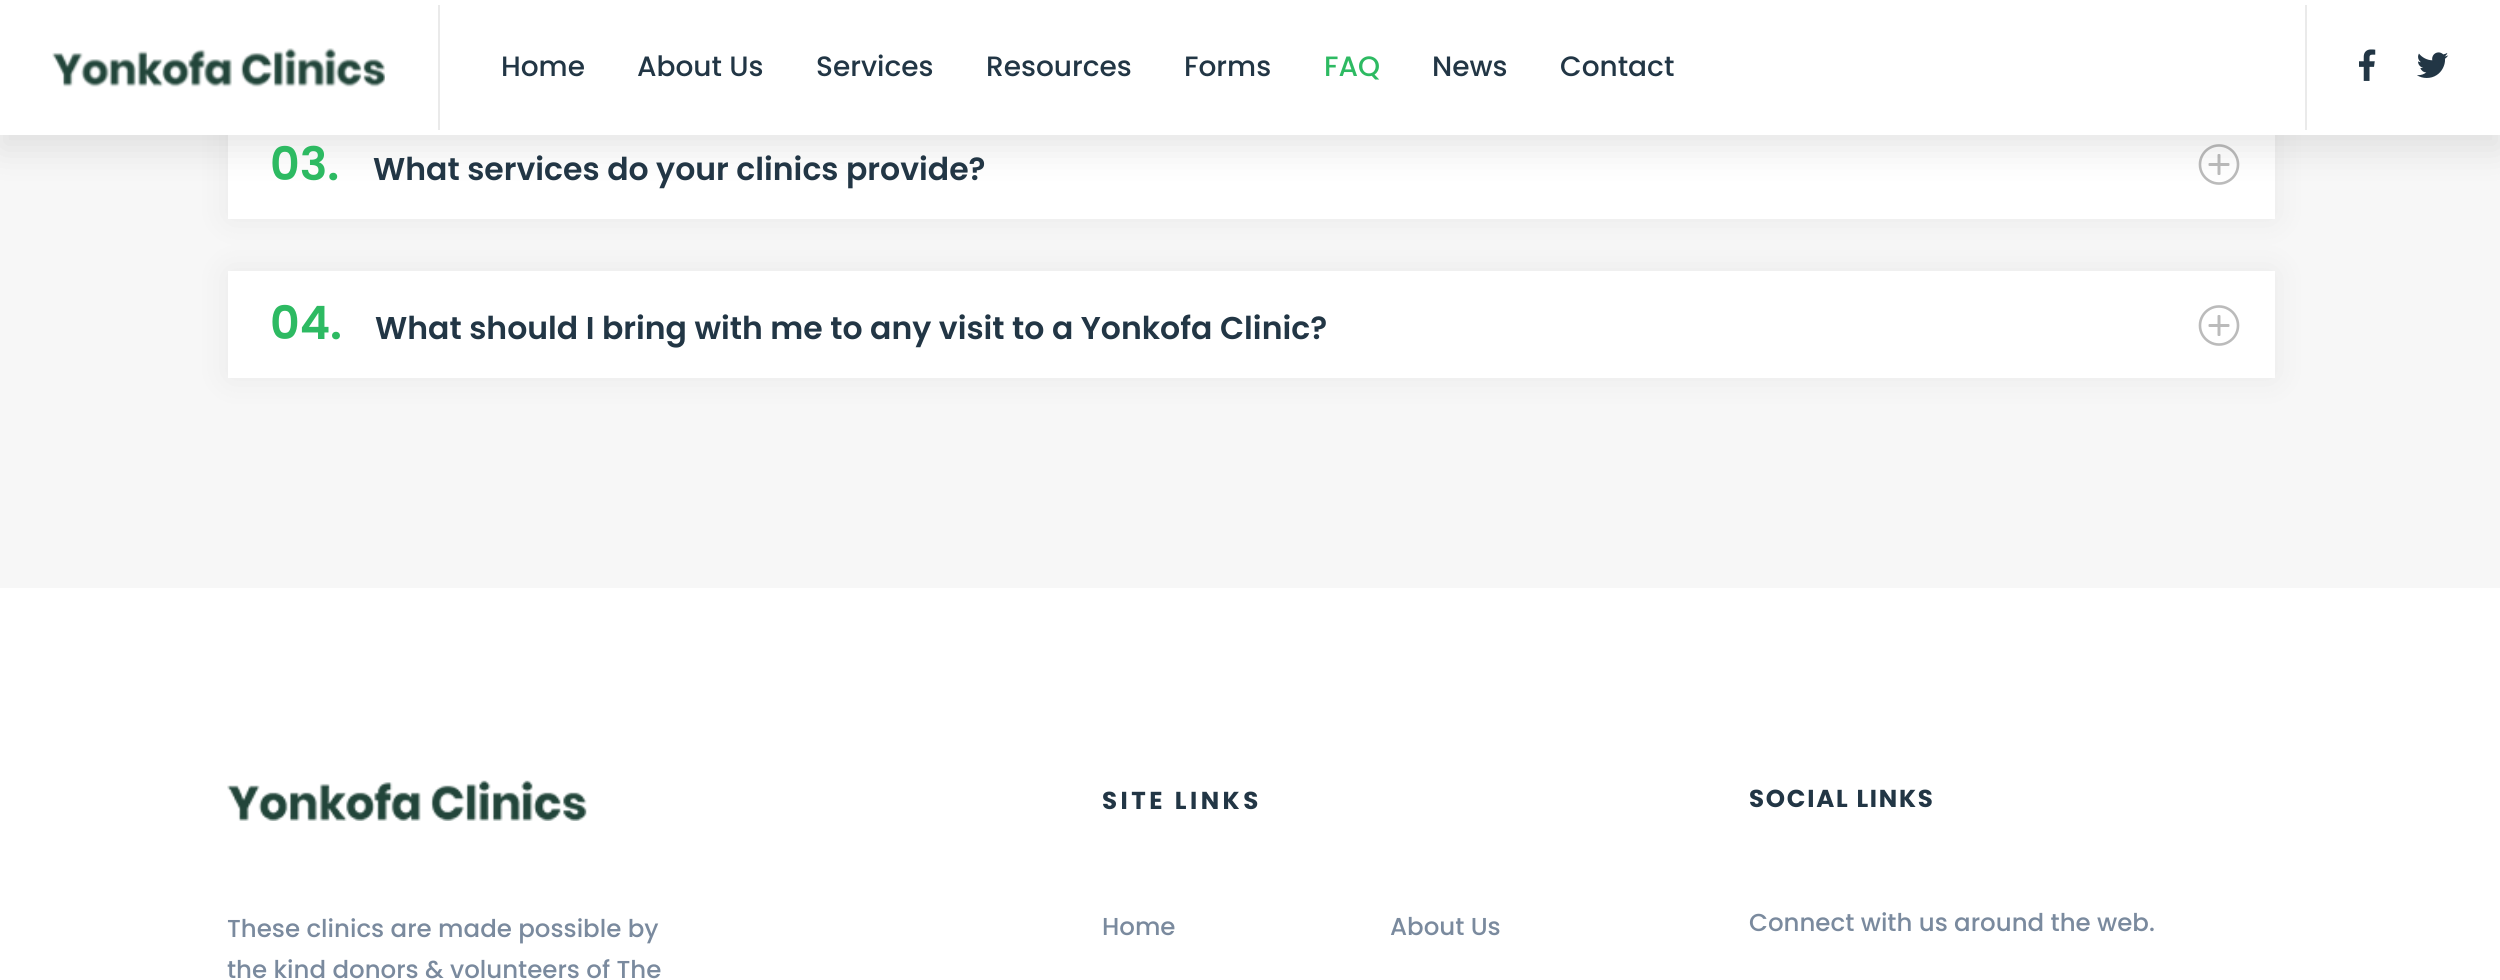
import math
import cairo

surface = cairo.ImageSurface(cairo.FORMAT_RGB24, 2500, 980)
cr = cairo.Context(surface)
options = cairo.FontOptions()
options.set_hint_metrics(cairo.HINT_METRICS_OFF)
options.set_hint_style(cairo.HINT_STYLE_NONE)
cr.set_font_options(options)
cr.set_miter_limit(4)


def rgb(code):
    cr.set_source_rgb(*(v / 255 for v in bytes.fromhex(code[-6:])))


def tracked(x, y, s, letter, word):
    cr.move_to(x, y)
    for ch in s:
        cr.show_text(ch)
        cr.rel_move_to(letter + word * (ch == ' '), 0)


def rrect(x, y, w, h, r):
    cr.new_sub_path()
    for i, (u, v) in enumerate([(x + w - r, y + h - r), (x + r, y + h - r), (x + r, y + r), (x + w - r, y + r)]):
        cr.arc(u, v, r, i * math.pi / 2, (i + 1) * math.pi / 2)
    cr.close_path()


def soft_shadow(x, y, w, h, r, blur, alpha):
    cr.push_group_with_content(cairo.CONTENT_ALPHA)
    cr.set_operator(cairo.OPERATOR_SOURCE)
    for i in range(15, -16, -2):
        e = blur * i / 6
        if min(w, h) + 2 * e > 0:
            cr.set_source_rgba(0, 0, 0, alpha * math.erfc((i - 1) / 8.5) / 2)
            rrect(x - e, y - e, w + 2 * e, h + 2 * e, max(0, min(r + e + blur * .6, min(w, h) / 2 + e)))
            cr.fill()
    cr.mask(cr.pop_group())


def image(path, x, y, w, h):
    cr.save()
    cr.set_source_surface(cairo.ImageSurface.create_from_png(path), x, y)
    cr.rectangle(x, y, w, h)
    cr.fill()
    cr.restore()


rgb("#ffffff")
cr.paint()
rgb("#f7f7f7")
cr.rectangle(0, 135, 2500, 453)
cr.fill()
rgb("#000000")
soft_shadow(228, 112, 2047, 107, 0, 17.5, 0.06)
rgb("#ffffff")
cr.rectangle(228, 135, 2047, 84)
cr.fill()
image("img/4.png", 2198, 144, 42, 41)
rgb("#000000")
soft_shadow(0, 14, 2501, 135, 0, 17.5, 0.1)
rgb("#ffffff")
cr.rectangle(0, 0, 2500, 135)
cr.fill()
rgb("#eaeaea")
cr.rectangle(438, 5, 2, 125)
cr.fill()
image("img/1.png", 52, 48, 333, 39)
cr.rectangle(2305, 5, 2, 125)
cr.fill()
image("img/2.png", 2359, 49, 17, 32)
image("img/3.png", 2417, 52, 32, 26)
rgb("#000000")
soft_shadow(228, 271, 2047, 107, 0, 17.5, 0.06)
rgb("#ffffff")
cr.rectangle(228, 271, 2047, 107)
cr.fill()
image("img/4.png", 2198, 305, 42, 41)
image("img/5.png", 227, 780, 360, 41)
cr.select_font_face("Poppins Medium")
cr.set_font_size(28)
rgb("#223645")
for x, y, s in [
    (501, 76, "Home"),
    (637, 76, "About Us"),
    (816, 76, "Services"),
    (986, 76, "Resources"),
    (1184, 76, "Forms"),
]:
    cr.move_to(x, y)
    cr.show_text(s)
rgb("#2dba62")
cr.move_to(1324, 76)
cr.show_text("FAQ")
rgb("#223645")
cr.move_to(1432, 76)
cr.show_text("News")
cr.move_to(1560, 76)
cr.show_text("Contact")
cr.select_font_face("Poppins SemiBold")
cr.set_font_size(46)
rgb("#2dba62")
cr.move_to(270, 180)
cr.show_text("03.")
cr.set_font_size(31.5)
rgb("#223645")
cr.move_to(373, 180)
cr.show_text("What services do your clinics provide?")
cr.set_font_size(46)
rgb("#2dba62")
cr.move_to(270, 339)
cr.show_text("04.")
cr.set_font_size(31.5)
rgb("#223645")
cr.move_to(375, 339)
cr.show_text("What should I bring with me to any visit to a Yonkofa Clinic?")
cr.select_font_face("Poppins", cairo.FONT_SLANT_NORMAL, cairo.FONT_WEIGHT_BOLD)
cr.set_font_size(24.5)
tracked(1102, 809, "SITE LINKS", 3.5, 0)
cr.select_font_face("Poppins Medium")
rgb("#7a8a9e")
cr.move_to(1102, 935)
cr.show_text("Home")
cr.move_to(1390, 935)
cr.show_text("About Us")
cr.select_font_face("Poppins", cairo.FONT_SLANT_NORMAL, cairo.FONT_WEIGHT_BOLD)
rgb("#223645")
tracked(1749, 807, "SOCIAL LINKS", 1.75, 0)
cr.select_font_face("Poppins Medium")
rgb("#7a8a9e")
for x, y, s in [
    (1749, 931, "Connect with us around the web."),
    (227, 937, "These clinics are made possible by"),
    (227, 978, "the kind donors & volunteers of The"),
]:
    cr.move_to(x, y)
    cr.show_text(s)
surface.write_to_png("page.png")
